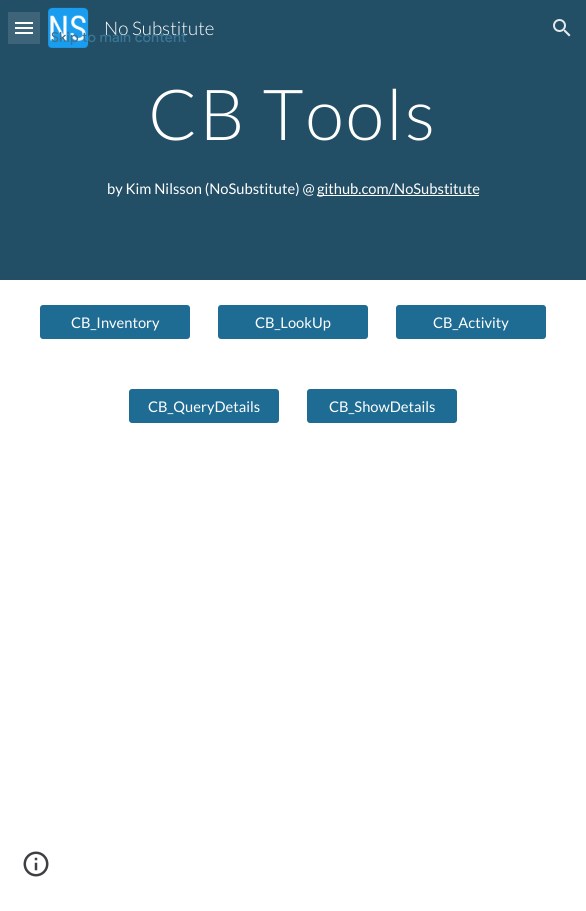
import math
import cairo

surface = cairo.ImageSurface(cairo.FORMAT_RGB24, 586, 911)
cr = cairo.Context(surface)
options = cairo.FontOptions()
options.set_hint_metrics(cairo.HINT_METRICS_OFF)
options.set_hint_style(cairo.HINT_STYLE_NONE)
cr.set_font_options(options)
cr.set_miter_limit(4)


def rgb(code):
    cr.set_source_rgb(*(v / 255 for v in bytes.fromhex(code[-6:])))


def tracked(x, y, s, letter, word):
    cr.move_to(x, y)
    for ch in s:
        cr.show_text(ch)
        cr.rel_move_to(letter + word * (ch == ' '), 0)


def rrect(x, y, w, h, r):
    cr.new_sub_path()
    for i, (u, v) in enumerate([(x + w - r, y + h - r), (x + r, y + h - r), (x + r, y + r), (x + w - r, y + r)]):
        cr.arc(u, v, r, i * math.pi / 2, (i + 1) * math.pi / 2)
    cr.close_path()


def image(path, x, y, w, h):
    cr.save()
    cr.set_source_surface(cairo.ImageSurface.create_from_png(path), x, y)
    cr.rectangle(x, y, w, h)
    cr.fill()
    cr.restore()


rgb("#ffffff")
cr.paint()
for x, y, w, h, color in [
    (0, 0, 586, 280, "#224f66"),
    (8, 12, 32, 32, "#3d6478"),
    (15, 22, 18, 2, "#ffffff"),
    (15, 27, 18, 2, "#ffffff"),
    (15, 32, 18, 2, "#ffffff"),
]:
    rgb(color)
    cr.rectangle(x, y, w, h)
    cr.fill()
image("img/1.png", 48, 7, 41, 41)
image("img/2.png", 553, 19, 18, 18)
cr.rectangle(317, 195, 162, 1)
cr.fill()
rgb("#1e6c93")
rrect(40, 305, 150, 34, 3)
cr.fill()
rrect(218, 305, 150, 34, 3)
cr.fill()
rrect(396, 305, 150, 34, 3)
cr.fill()
rrect(129, 389, 150, 34, 3)
cr.fill()
rrect(307, 389, 150, 34, 3)
cr.fill()
image("img/3.png", 23, 851, 26, 26)
cr.select_font_face("Lato Light")
cr.set_font_size(18.75)
rgb("#ffffff")
cr.move_to(104, 35)
cr.show_text("No Substitute")
cr.set_font_size(70.5)
tracked(148, 140, "CB Tools", 2, 0)
cr.select_font_face("Lato")
cr.set_font_size(14.7)
for x, y, s in [
    (107, 194, "by Kim Nilsson (NoSubstitute) @"),
    (317, 194, "github.com/NoSubstitute"),
    (71, 328, "CB_Inventory"),
    (255, 328, "CB_LookUp"),
    (433, 328, "CB_Activity"),
    (148, 412, "CB_QueryDetails"),
    (329, 412, "CB_ShowDetails"),
]:
    cr.move_to(x, y)
    cr.show_text(s)
cr.select_font_face("Google Sans Medium")
cr.set_font_size(14)
rgb("#3a7596")
tracked(51, 42, "Skip to main content", 0.1, 0)
surface.write_to_png("page.png")
